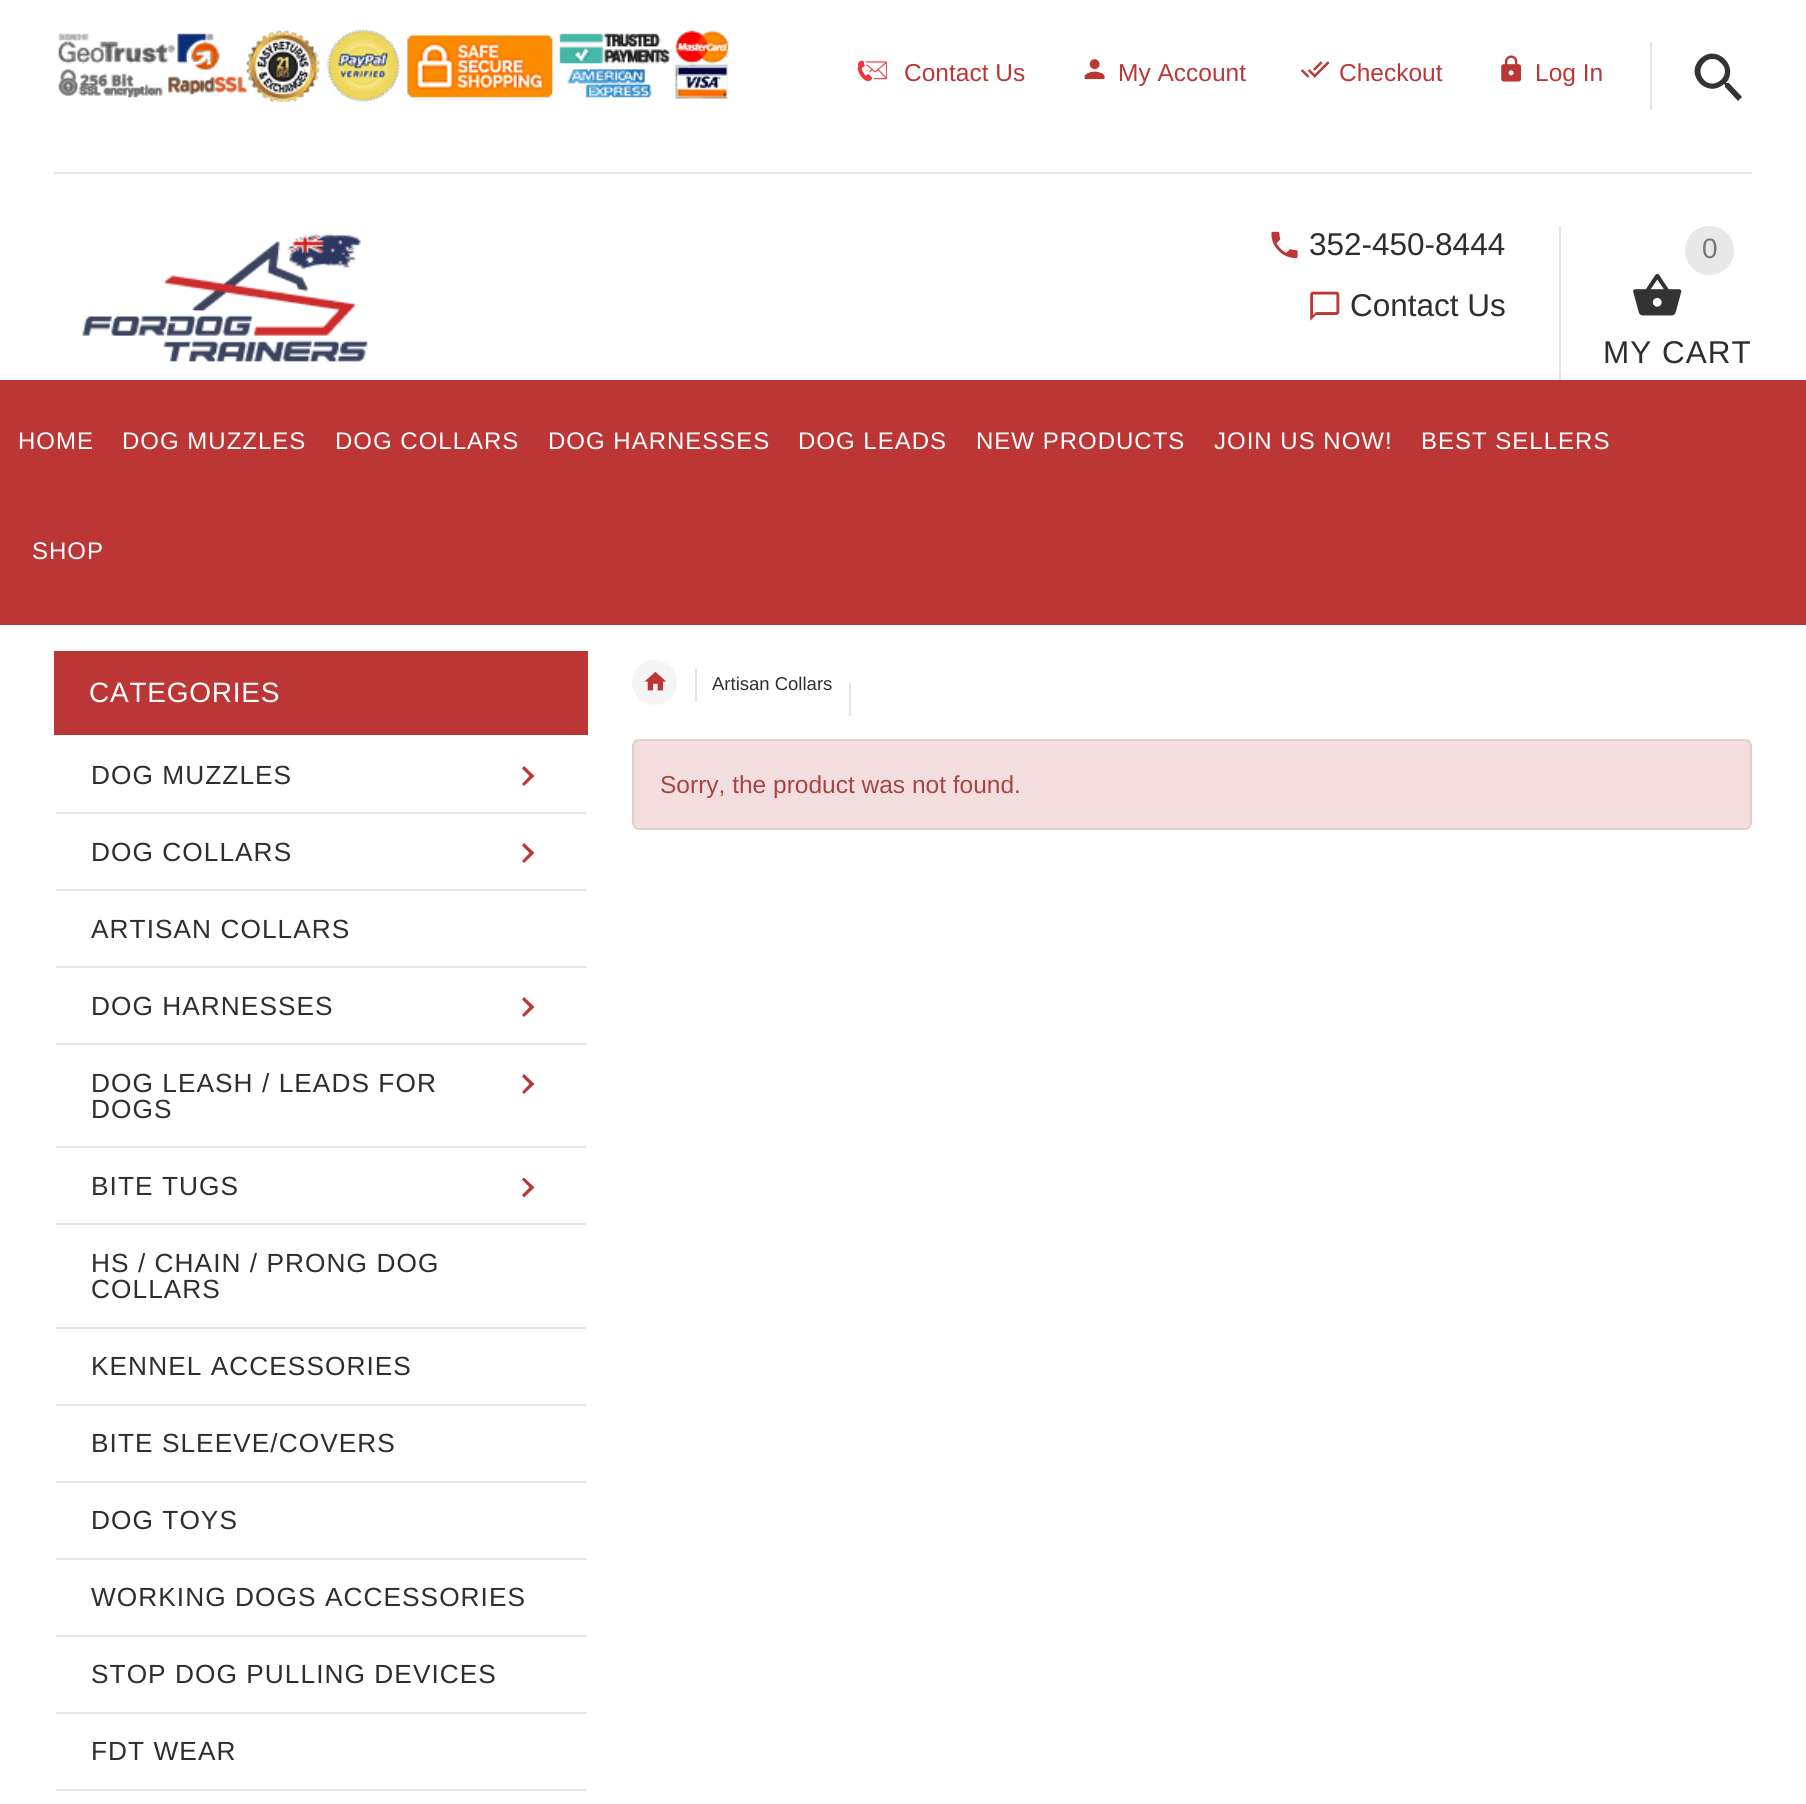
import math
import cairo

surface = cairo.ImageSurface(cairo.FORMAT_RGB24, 1806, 1804)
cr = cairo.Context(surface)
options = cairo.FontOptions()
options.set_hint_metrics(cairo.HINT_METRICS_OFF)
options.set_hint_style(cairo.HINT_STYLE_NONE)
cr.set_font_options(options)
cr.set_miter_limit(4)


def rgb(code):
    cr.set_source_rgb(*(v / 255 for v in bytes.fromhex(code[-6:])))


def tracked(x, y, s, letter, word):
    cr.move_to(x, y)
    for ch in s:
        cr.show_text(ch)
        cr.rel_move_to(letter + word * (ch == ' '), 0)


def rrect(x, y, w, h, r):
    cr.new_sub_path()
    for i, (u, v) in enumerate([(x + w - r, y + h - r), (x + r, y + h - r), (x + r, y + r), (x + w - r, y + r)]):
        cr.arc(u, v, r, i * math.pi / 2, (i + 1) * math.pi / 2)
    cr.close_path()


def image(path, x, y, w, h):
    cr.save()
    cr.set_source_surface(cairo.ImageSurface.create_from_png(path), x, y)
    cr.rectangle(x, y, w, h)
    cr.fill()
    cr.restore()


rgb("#ffffff")
cr.paint()
image("img/1.png", 58, 29, 671, 73)
rgb("#e5e5e5")
cr.rectangle(1650, 42, 2, 68)
cr.fill()
image("img/2.png", 858, 60, 29, 21)
image("img/3.png", 1084, 59, 21, 21)
image("img/4.png", 1300, 61, 30, 17)
image("img/5.png", 1501, 55, 21, 27)
rgb("#333333")
cr.new_path()
cr.move_to(1704, 80)
cr.curve_to(1715, 91, 1733, 74, 1721, 63)
cr.curve_to(1710, 51, 1693, 68, 1704, 80)
cr.close_path()
cr.move_to(1729, 83)
cr.line_to(1742, 97)
cr.line_to(1738, 101)
cr.line_to(1725, 87)
cr.line_to(1725, 85)
cr.line_to(1724, 84)
cr.curve_to(1707, 99, 1684, 75, 1700, 59)
cr.curve_to(1716, 43, 1740, 66, 1726, 83)
cr.line_to(1727, 83)
cr.close_path()
cr.fill()
rgb("#e5e5e5")
cr.rectangle(54, 172, 1698, 2)
cr.fill()
image("img/6.png", 82, 233, 286, 129)
image("img/7.png", 1271, 231, 27, 28)
image("img/8.png", 1310, 291, 30, 30)
cr.rectangle(1559, 226, 2, 154)
cr.fill()
rgb("#e8e8e8")
cr.arc(1709.5, 250.5, 24.5, 0, 2 * math.pi)
cr.fill()
image("img/9.png", 1633, 273, 49, 43)
for x, y, w, h, color in [
    (0, 380, 1806, 245, "#bc3636"),
    (54, 651, 534, 84, "#bc3636"),
    (56, 812, 530, 2, "#e5e5e5"),
]:
    rgb(color)
    cr.rectangle(x, y, w, h)
    cr.fill()
rgb("#bc3636")
cr.new_path()
cr.move_to(524, 766)
cr.line_to(534.5, 776)
cr.line_to(524, 786)
cr.line_to(522, 784)
cr.line_to(529.5, 776)
cr.line_to(522, 768.5)
cr.close_path()
cr.fill()
rgb("#e5e5e5")
cr.rectangle(56, 889, 530, 2)
cr.fill()
rgb("#bc3636")
cr.new_path()
cr.move_to(524, 843)
cr.line_to(534.5, 853)
cr.line_to(524, 863)
cr.line_to(522, 861)
cr.line_to(529.5, 853)
cr.line_to(522, 845.5)
cr.close_path()
cr.fill()
rgb("#e5e5e5")
cr.rectangle(56, 966, 530, 2)
cr.fill()
cr.rectangle(56, 1043, 530, 2)
cr.fill()
rgb("#bc3636")
cr.new_path()
cr.move_to(524, 997)
cr.line_to(534.5, 1007)
cr.line_to(524, 1017)
cr.line_to(522, 1015)
cr.line_to(529.5, 1007)
cr.line_to(522, 999.5)
cr.close_path()
cr.fill()
rgb("#e5e5e5")
cr.rectangle(56, 1146, 530, 2)
cr.fill()
rgb("#bc3636")
cr.new_path()
cr.move_to(524, 1074)
cr.line_to(534.5, 1084)
cr.line_to(524, 1094)
cr.line_to(522, 1092)
cr.line_to(529.5, 1084)
cr.line_to(522, 1076.5)
cr.close_path()
cr.fill()
rgb("#e5e5e5")
cr.rectangle(56, 1223, 530, 2)
cr.fill()
rgb("#bc3636")
cr.new_path()
cr.move_to(524, 1177.5)
cr.line_to(534.5, 1187.5)
cr.line_to(524, 1197.5)
cr.line_to(522, 1195)
cr.line_to(529.5, 1187.5)
cr.line_to(522, 1179.5)
cr.close_path()
cr.fill()
for x, y, w, h, color in [
    (56, 1327, 530, 2, "#e5e5e5"),
    (56, 1404, 530, 2, "#e5e5e5"),
    (56, 1481, 530, 2, "#e5e5e5"),
    (56, 1558, 530, 2, "#e5e5e5"),
    (56, 1635, 530, 2, "#e5e5e5"),
    (56, 1712, 530, 2, "#e5e5e5"),
    (56, 1789, 530, 2, "#e5e5e5"),
]:
    rgb(color)
    cr.rectangle(x, y, w, h)
    cr.fill()
rgb("#f5f5f5")
cr.arc(654.5, 682.5, 22.5, 0, 2 * math.pi)
cr.fill()
image("img/10.png", 644, 671, 23, 20)
rgb("#e5e5e5")
cr.rectangle(695, 669, 2, 33)
cr.fill()
cr.rectangle(849, 683, 2, 33)
cr.fill()
rgb("#f2dede")
rrect(633, 740, 1118, 89, 6)
cr.fill_preserve()
rgb("#ebccd1")
cr.stroke()
cr.select_font_face("Liberation Sans")
cr.set_font_size(24.5)
rgb("#bc3636")
for x, y, s in [
    (904, 81, "Contact Us"),
    (1118, 81, "My Account"),
    (1339, 81, "Checkout"),
    (1535, 81, "Log In"),
]:
    cr.move_to(x, y)
    cr.show_text(s)
cr.set_font_size(31.5)
rgb("#2e2e2e")
cr.move_to(1309, 255)
cr.show_text("352-450-8444")
cr.move_to(1350, 316)
cr.show_text("Contact Us")
cr.set_font_size(28)
rgb("#777777")
cr.move_to(1702, 258)
cr.show_text("0")
cr.set_font_size(31.5)
rgb("#2e2e2e")
tracked(1603, 363, "MY CART", 1, 0)
cr.set_font_size(24)
rgb("#ffffff")
for x, y, s in [
    (18, 449, "HOME"),
    (122, 449, "DOG MUZZLES"),
    (335, 449, "DOG COLLARS"),
    (548, 449, "DOG HARNESSES"),
    (798, 449, "DOG LEADS"),
    (976, 449, "NEW PRODUCTS"),
    (1214, 449, "JOIN US NOW!"),
    (1421, 449, "BEST SELLERS"),
    (32, 559, "SHOP"),
]:
    tracked(x, y, s, 1, 0)
cr.set_font_size(28)
tracked(89, 702, "CATEGORIES", 0.75, 0)
cr.set_font_size(26.25)
rgb("#2e2e2e")
for x, y, s in [
    (91, 784, "DOG MUZZLES"),
    (91, 861, "DOG COLLARS"),
    (91, 938, "ARTISAN COLLARS"),
    (91, 1015, "DOG HARNESSES"),
    (91, 1092, "DOG LEASH / LEADS FOR"),
    (91, 1118, "DOGS"),
    (91, 1195, "BITE TUGS"),
    (91, 1272, "HS / CHAIN / PRONG DOG"),
    (91, 1298, "COLLARS"),
    (91, 1375, "KENNEL ACCESSORIES"),
    (91, 1452, "BITE SLEEVE/COVERS"),
    (91, 1529, "DOG TOYS"),
    (91, 1606, "WORKING DOGS ACCESSORIES"),
    (91, 1683, "STOP DOG PULLING DEVICES"),
    (91, 1760, "FDT WEAR"),
]:
    tracked(x, y, s, 1.05, 0)
cr.set_font_size(18.5)
cr.move_to(712, 690)
cr.show_text("Artisan Collars")
cr.set_font_size(24.5)
rgb("#a94442")
cr.move_to(660, 793)
cr.show_text("Sorry, the product was not found.")
surface.write_to_png("page.png")
